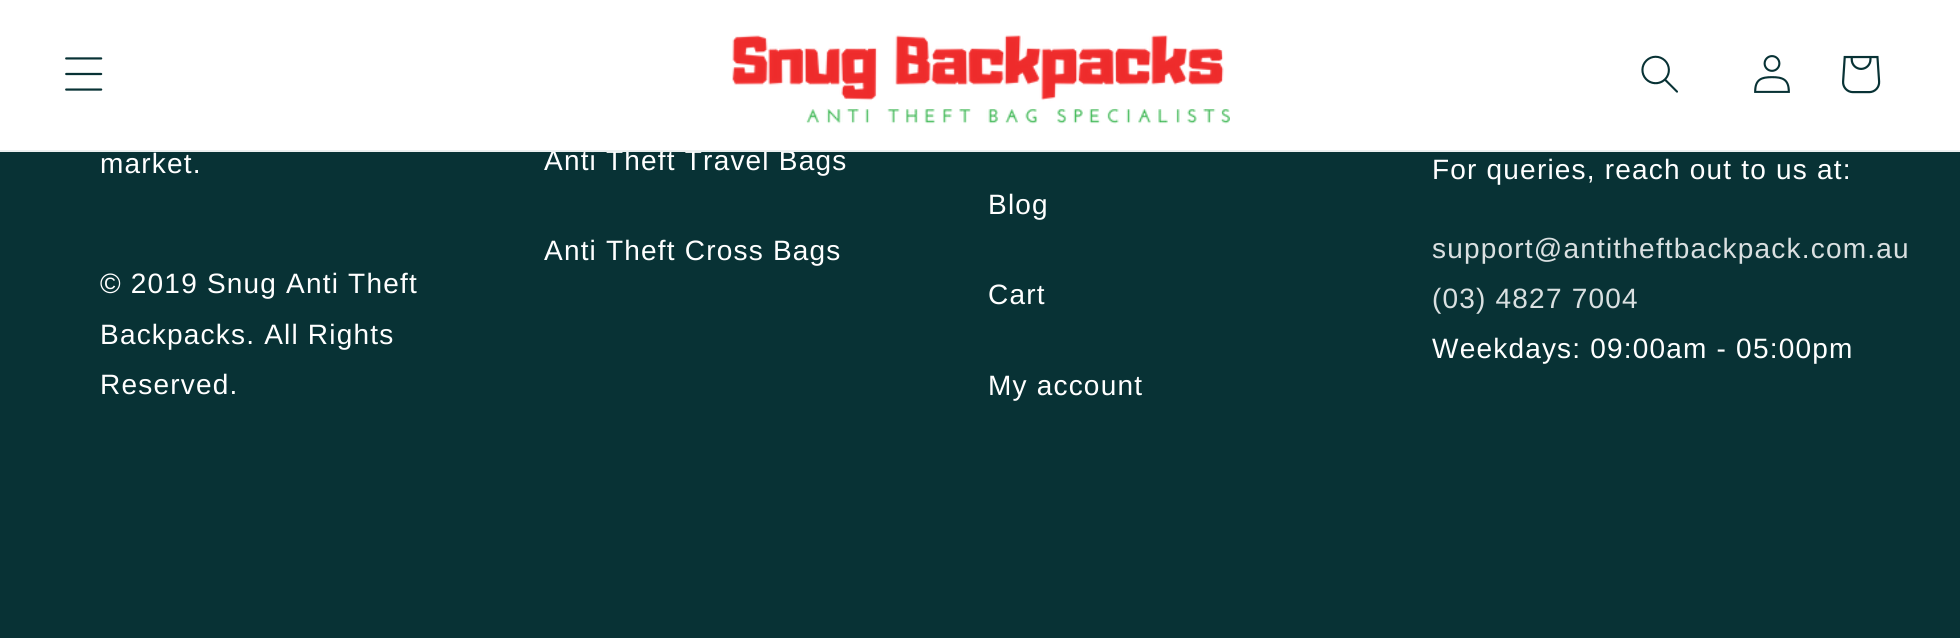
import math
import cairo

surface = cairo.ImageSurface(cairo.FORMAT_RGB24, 1960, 638)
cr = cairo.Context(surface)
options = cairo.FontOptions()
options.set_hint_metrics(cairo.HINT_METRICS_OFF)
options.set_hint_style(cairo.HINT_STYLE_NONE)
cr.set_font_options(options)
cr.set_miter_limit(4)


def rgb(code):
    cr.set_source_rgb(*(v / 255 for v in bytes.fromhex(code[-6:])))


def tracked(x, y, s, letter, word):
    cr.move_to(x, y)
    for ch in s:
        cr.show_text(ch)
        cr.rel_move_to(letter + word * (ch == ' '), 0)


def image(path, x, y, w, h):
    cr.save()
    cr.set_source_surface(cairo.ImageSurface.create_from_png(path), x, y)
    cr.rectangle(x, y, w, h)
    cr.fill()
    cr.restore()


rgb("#083235")
cr.paint()
rgb("#ffffff")
cr.rectangle(0, 0, 1960, 150)
cr.fill()
image("img/1.png", 65, 57, 38, 34)
image("img/2.png", 732, 35, 498, 89)
image("img/3.png", 1641, 55, 37, 38)
image("img/4.png", 1754, 55, 36, 38)
image("img/5.png", 1842, 55, 39, 39)
cr.select_font_face("Arimo")
cr.set_font_size(28)
for x, y, s in [
    (100, 173, "market."),
    (100, 293, "© 2019 Snug Anti Theft"),
    (100, 344, "Backpacks. All Rights"),
    (100, 394, "Reserved."),
    (544, 170, "Anti Theft Travel Bags"),
]:
    tracked(x, y, s, 1.2, 0)
rgb("#ebefef")
cr.rectangle(0, 150, 1960, 2)
cr.fill()
rgb("#ffffff")
for x, y, s in [
    (544, 260, "Anti Theft Cross Bags"),
    (988, 214, "Blog"),
    (988, 304, "Cart"),
    (988, 395, "My account"),
    (1432, 179, "For queries, reach out to us at:"),
]:
    tracked(x, y, s, 1.2, 0)
rgb("#dae0e1")
tracked(1432, 258, "support@antitheftbackpack.com.au", 1.2, 0)
tracked(1432, 308, "(03) 4827 7004", 1.2, 0)
rgb("#ffffff")
tracked(1432, 358, "Weekdays: 09:00am - 05:00pm", 1.2, 0)
surface.write_to_png("page.png")
